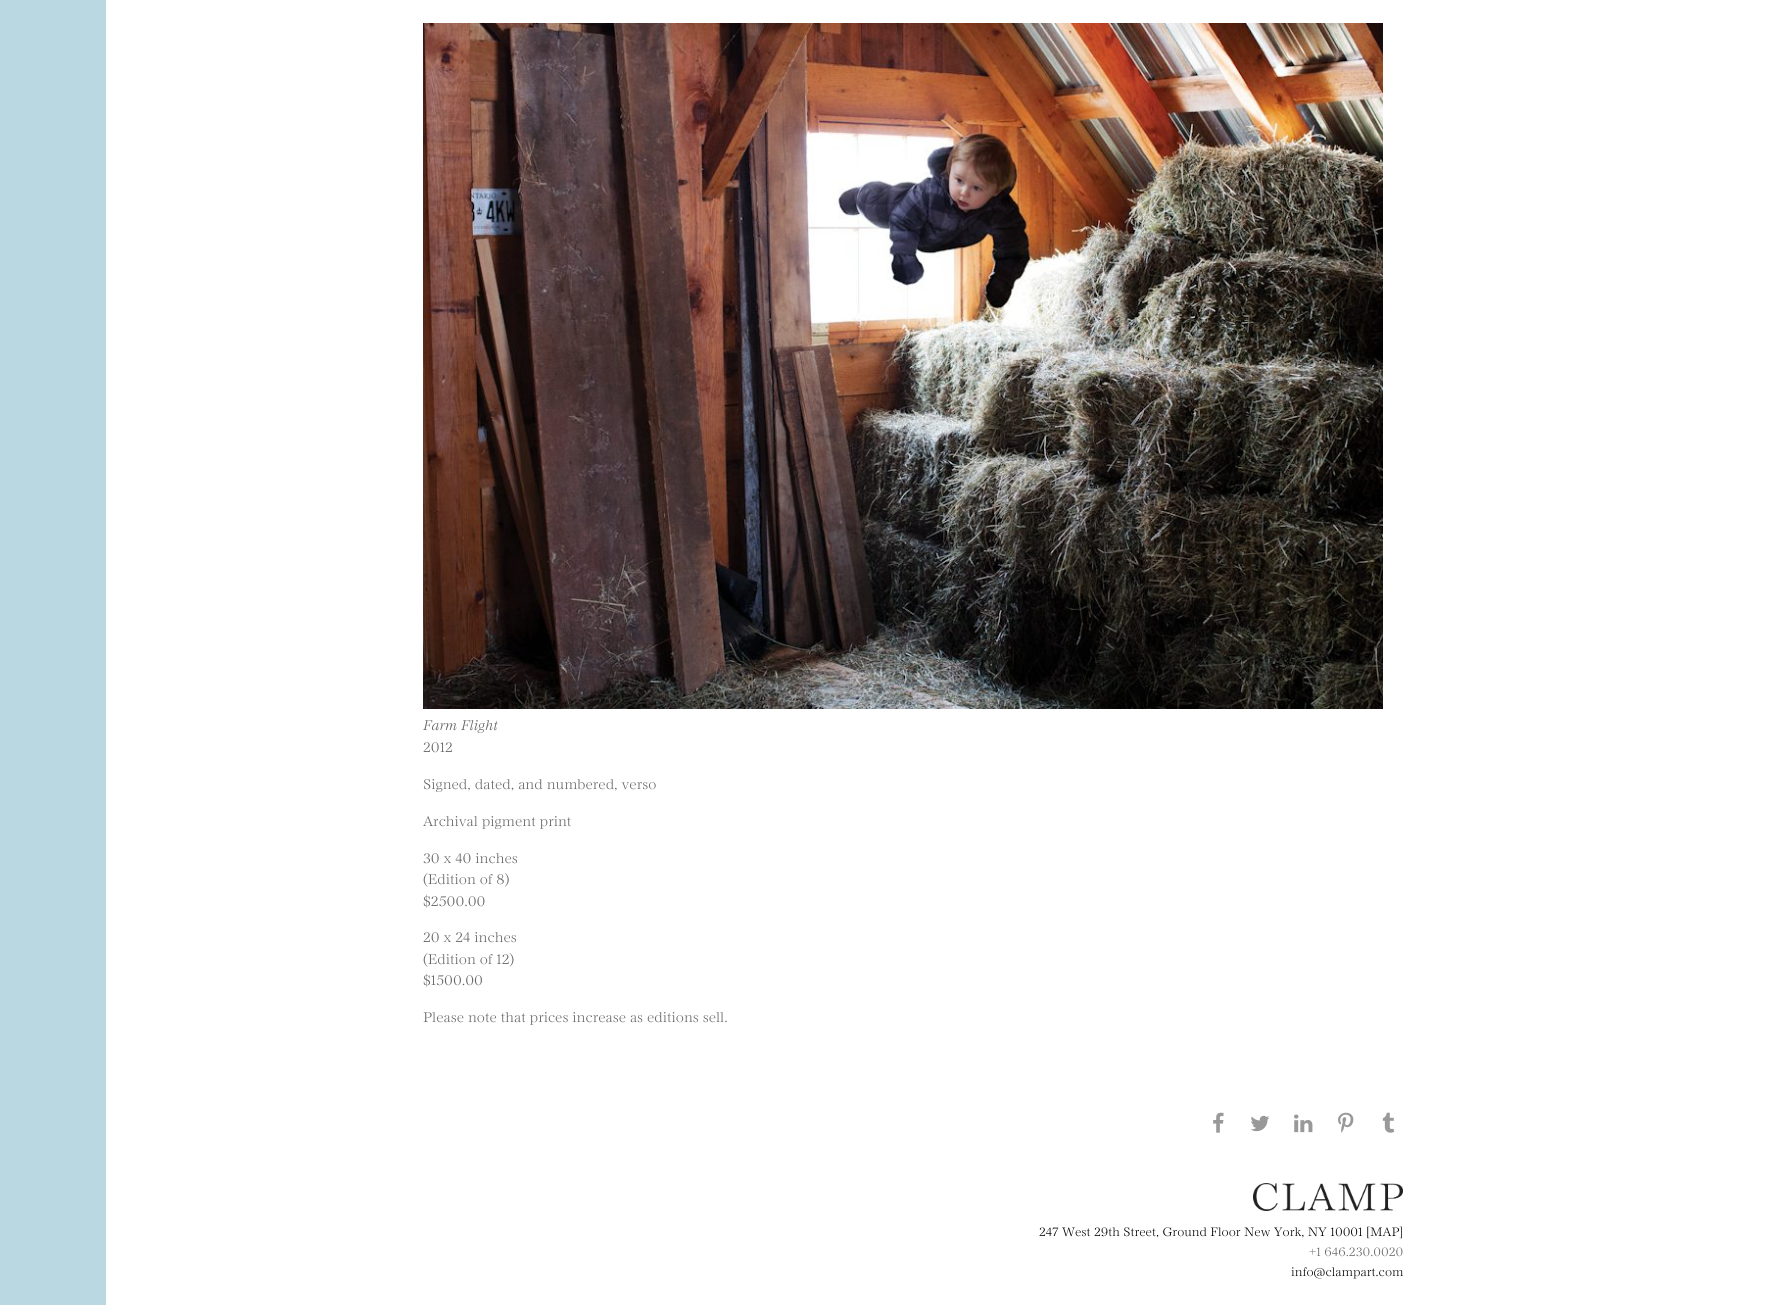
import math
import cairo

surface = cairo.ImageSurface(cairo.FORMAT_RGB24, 1786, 1305)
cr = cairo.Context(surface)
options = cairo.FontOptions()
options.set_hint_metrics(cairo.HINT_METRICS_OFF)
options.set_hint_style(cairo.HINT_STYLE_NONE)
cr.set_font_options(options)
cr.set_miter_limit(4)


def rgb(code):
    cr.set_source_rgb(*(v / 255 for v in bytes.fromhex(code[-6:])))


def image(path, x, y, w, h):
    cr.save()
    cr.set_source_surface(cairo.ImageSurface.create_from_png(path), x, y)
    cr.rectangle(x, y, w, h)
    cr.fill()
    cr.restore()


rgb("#ffffff")
cr.paint()
rgb("#b9d8e2")
cr.rectangle(0, 0, 106, 1305)
cr.fill()
image("img/1.png", 423, 23, 960, 686)
image("img/2.png", 1213, 1112, 11, 21)
image("img/3.png", 1250, 1115, 20, 17)
image("img/4.png", 1294, 1114, 19, 19)
image("img/5.png", 1338, 1112, 16, 21)
image("img/6.png", 1382, 1112, 13, 21)
image("img/7.png", 1253, 1183, 150, 28)
cr.select_font_face("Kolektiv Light", cairo.FONT_SLANT_ITALIC)
cr.set_font_size(15.4)
rgb("#666666")
cr.move_to(423, 730)
cr.show_text("Farm Flight")
cr.select_font_face("Kolektiv Light")
for x, y, s in [
    (423, 752, "2012"),
    (423, 789, "Signed, dated, and numbered, verso"),
    (423, 826, "Archival pigment print"),
    (423, 863, "30 x 40 inches"),
    (423, 884, "(Edition of 8)"),
    (423, 906, "$2500.00"),
    (423, 942, "20 x 24 inches"),
    (423, 964, "(Edition of 12)"),
    (423, 985, "$1500.00"),
    (423, 1022, "Please note that prices increase as editions sell."),
]:
    cr.move_to(x, y)
    cr.show_text(s)
cr.set_font_size(13.45)
rgb("#000000")
cr.move_to(1039, 1236)
cr.show_text("247 West 29th Street, Ground Floor New York, NY 10001 [MAP]")
rgb("#666666")
cr.move_to(1309, 1256)
cr.show_text("+1 646.230.0020")
rgb("#000000")
cr.move_to(1291, 1276)
cr.show_text("info@clampart.com")
surface.write_to_png("page.png")
